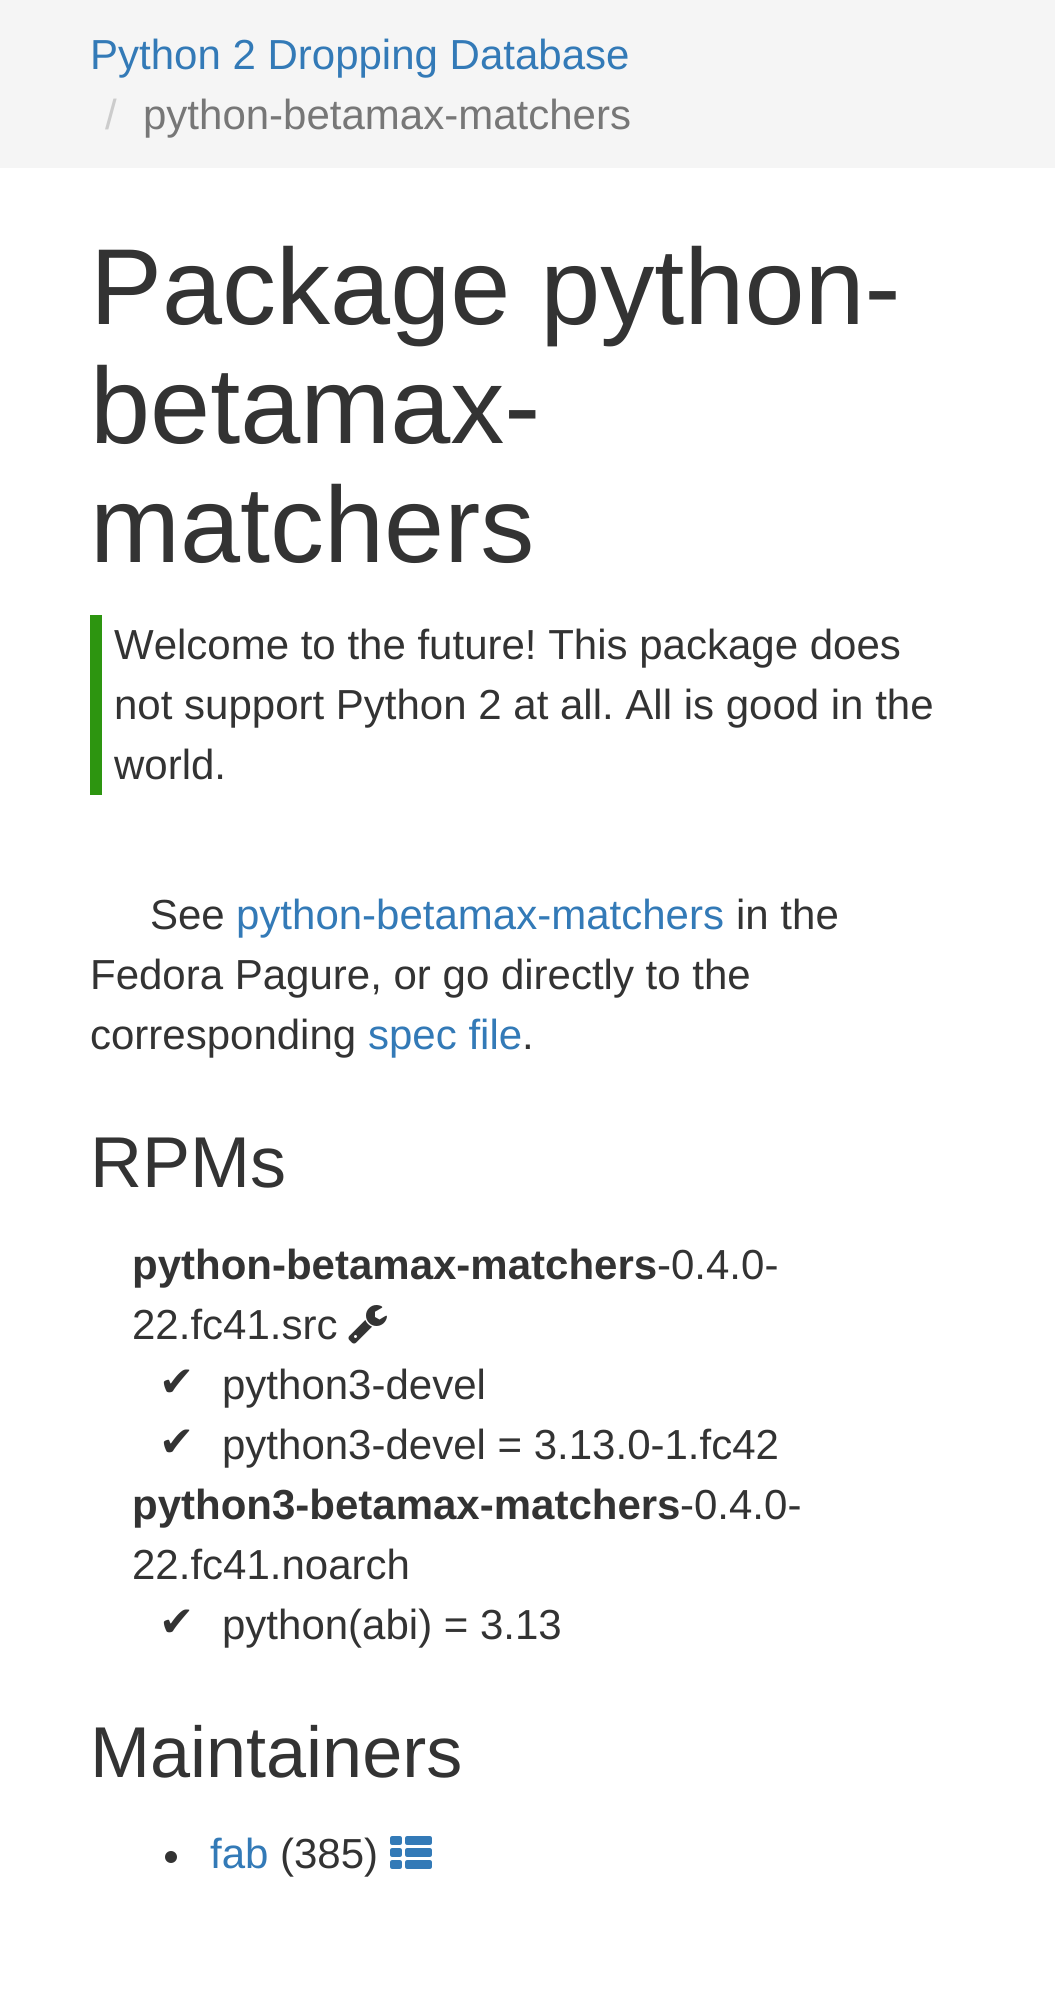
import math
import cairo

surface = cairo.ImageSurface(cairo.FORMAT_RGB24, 1055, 1995)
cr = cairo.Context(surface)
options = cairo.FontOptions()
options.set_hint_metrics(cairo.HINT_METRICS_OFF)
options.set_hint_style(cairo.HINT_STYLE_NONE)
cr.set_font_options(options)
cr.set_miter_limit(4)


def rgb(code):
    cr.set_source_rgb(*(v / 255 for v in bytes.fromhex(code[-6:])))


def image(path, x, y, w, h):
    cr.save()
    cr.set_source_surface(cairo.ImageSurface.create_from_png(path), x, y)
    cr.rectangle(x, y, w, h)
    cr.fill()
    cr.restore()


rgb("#ffffff")
cr.paint()
rgb("#f5f5f5")
cr.rectangle(0, 0, 1055, 168)
cr.fill()
rgb("#2d9510")
cr.rectangle(90, 615, 12, 180)
cr.fill()
image("img/1.png", 348, 1305, 39, 39)
rgb("#333333")
cr.arc(171, 1857, 6, 0, 2 * math.pi)
cr.fill()
image("img/2.png", 390, 1836, 42, 33)
cr.select_font_face("Liberation Sans")
cr.set_font_size(42)
rgb("#337ab7")
cr.move_to(90, 69)
cr.show_text("Python 2 Dropping Database")
rgb("#cccccc")
cr.move_to(105, 129)
cr.show_text("/")
rgb("#777777")
cr.move_to(143, 129)
cr.show_text("python-betamax-matchers")
cr.set_font_size(108)
rgb("#333333")
for x, y, s in [
    (90, 324, "Package python-"),
    (90, 443, "betamax-"),
    (90, 562, "matchers"),
]:
    cr.move_to(x, y)
    cr.show_text(s)
cr.set_font_size(42)
for x, y, s in [
    (114, 659, "Welcome to the future! This package does"),
    (114, 719, "not support Python 2 at all. All is good in the"),
    (114, 779, "world."),
    (150, 929, "See"),
]:
    cr.move_to(x, y)
    cr.show_text(s)
rgb("#337ab7")
cr.move_to(236, 929)
cr.show_text("python-betamax-matchers")
rgb("#333333")
for x, y, s in [
    (736, 929, "in the"),
    (90, 989, "Fedora Pagure, or go directly to the"),
    (90, 1049, "corresponding"),
]:
    cr.move_to(x, y)
    cr.show_text(s)
rgb("#337ab7")
cr.move_to(368, 1049)
cr.show_text("spec file")
rgb("#333333")
cr.move_to(522, 1049)
cr.show_text(".")
cr.set_font_size(72)
cr.move_to(90, 1187)
cr.show_text("RPMs")
cr.select_font_face("Liberation Sans", cairo.FONT_SLANT_NORMAL, cairo.FONT_WEIGHT_BOLD)
cr.set_font_size(42)
cr.move_to(132, 1279)
cr.show_text("python-betamax-matchers")
cr.select_font_face("Liberation Sans")
cr.move_to(657, 1279)
cr.show_text("-0.4.0-")
cr.move_to(132, 1339)
cr.show_text("22.fc41.src")
cr.select_font_face("DejaVu Sans")
cr.move_to(159, 1396)
cr.show_text("✔")
cr.select_font_face("Liberation Sans")
cr.move_to(222, 1399)
cr.show_text("python3-devel")
cr.select_font_face("DejaVu Sans")
cr.move_to(159, 1456)
cr.show_text("✔")
cr.select_font_face("Liberation Sans")
cr.move_to(222, 1459)
cr.show_text("python3-devel = 3.13.0-1.fc42")
cr.select_font_face("Liberation Sans", cairo.FONT_SLANT_NORMAL, cairo.FONT_WEIGHT_BOLD)
cr.move_to(132, 1519)
cr.show_text("python3-betamax-matchers")
cr.select_font_face("Liberation Sans")
cr.move_to(680, 1519)
cr.show_text("-0.4.0-")
cr.move_to(132, 1579)
cr.show_text("22.fc41.noarch")
cr.select_font_face("DejaVu Sans")
cr.move_to(159, 1636)
cr.show_text("✔")
cr.select_font_face("Liberation Sans")
cr.move_to(222, 1639)
cr.show_text("python(abi) = 3.13")
cr.set_font_size(72)
cr.move_to(90, 1777)
cr.show_text("Maintainers")
cr.set_font_size(42)
rgb("#337ab7")
cr.move_to(210, 1868)
cr.show_text("fab")
rgb("#333333")
cr.move_to(280, 1868)
cr.show_text("(385)")
surface.write_to_png("page.png")
